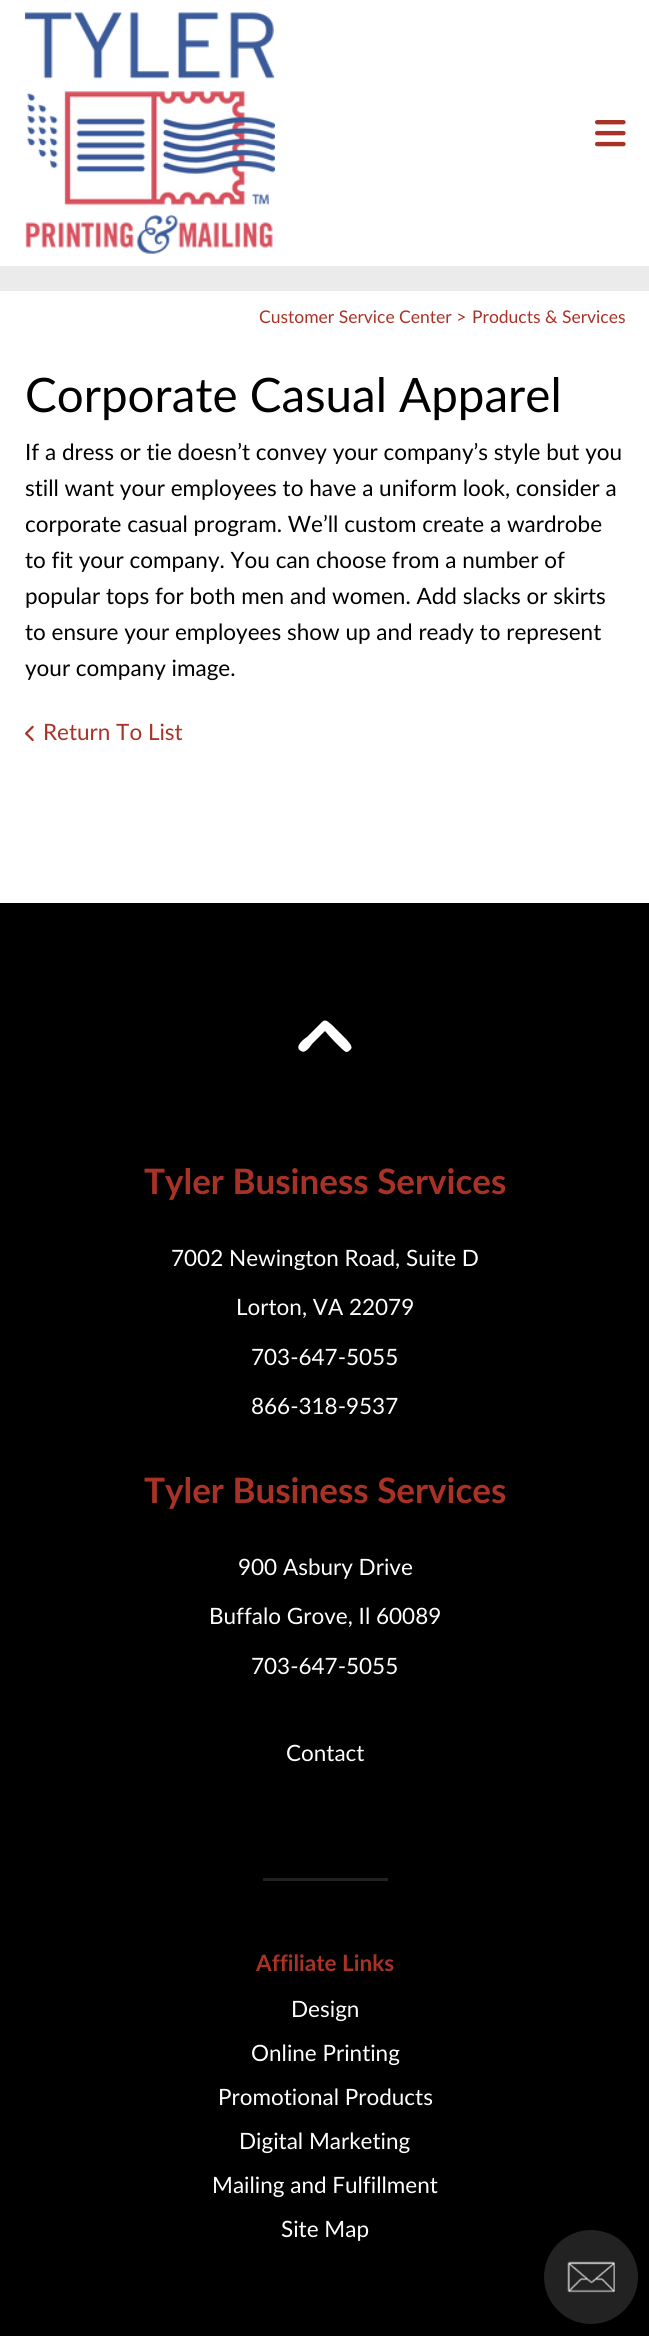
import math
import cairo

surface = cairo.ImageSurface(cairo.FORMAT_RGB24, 649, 2336)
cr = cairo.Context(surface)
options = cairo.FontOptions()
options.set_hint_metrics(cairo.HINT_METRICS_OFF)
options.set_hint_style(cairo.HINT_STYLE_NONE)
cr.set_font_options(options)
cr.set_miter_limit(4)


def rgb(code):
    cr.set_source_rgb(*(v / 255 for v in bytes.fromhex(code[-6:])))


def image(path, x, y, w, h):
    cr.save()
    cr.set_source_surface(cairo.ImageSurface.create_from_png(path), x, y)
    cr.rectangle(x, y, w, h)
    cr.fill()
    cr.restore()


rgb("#ebebeb")
cr.paint()
rgb("#ffffff")
cr.rectangle(0, 0, 649, 266)
cr.fill()
image("img/1.png", 25, 12, 250, 242)
image("img/2.png", 595, 120, 31, 27)
cr.rectangle(0, 291, 649, 612)
cr.fill()
image("img/3.png", 25, 725, 9, 17)
rgb("#000000")
cr.rectangle(0, 903, 649, 1433)
cr.fill()
rgb("#ffffff")
cr.new_path()
cr.move_to(322, 1022)
cr.curve_to(326, 1018, 329, 1023, 332, 1025)
cr.line_to(347, 1040)
cr.curve_to(349, 1043, 354, 1047, 350, 1050)
cr.curve_to(349, 1051, 348, 1052, 346, 1052)
cr.curve_to(343, 1051, 328, 1035, 325, 1031)
cr.line_to(312, 1044)
cr.curve_to(310, 1047, 305, 1054, 301, 1051)
cr.curve_to(293, 1047, 305, 1038, 307, 1037)
cr.close_path()
cr.fill()
rgb("#222222")
cr.rectangle(263, 1878, 125, 3)
cr.fill()
cr.arc(591, 2277, 47, 0, 2 * math.pi)
cr.fill()
image("img/4.png", 567, 2261, 48, 32)
cr.select_font_face("Lato")
cr.set_font_size(17.5)
rgb("#a93226")
cr.move_to(259, 323)
cr.show_text("Customer Service Center >")
cr.move_to(472, 323)
cr.show_text("Products & Services")
cr.set_font_size(47.5)
rgb("#000000")
cr.move_to(25, 412)
cr.show_text("Corporate Casual Apparel")
cr.set_font_size(22.5)
for x, y, s in [
    (25, 460, "If a dress or tie doesn’t convey your company’s style but you"),
    (25, 496, "still want your employees to have a uniform look, consider a"),
    (25, 532, "corporate casual program. We’ll custom create a wardrobe"),
    (25, 568, "to fit your company. You can choose from a number of"),
    (25, 604, "popular tops for both men and women. Add slacks or skirts"),
    (25, 640, "to ensure your employees show up and ready to represent"),
    (25, 676, "your company image."),
]:
    cr.move_to(x, y)
    cr.show_text(s)
rgb("#a93226")
cr.move_to(43, 740)
cr.show_text("Return To List")
cr.select_font_face("Lato", cairo.FONT_SLANT_NORMAL, cairo.FONT_WEIGHT_BOLD)
cr.set_font_size(35)
cr.move_to(144, 1194)
cr.show_text("Tyler Business Services")
cr.select_font_face("Lato")
cr.set_font_size(22.5)
rgb("#ffffff")
for x, y, s in [
    (171, 1266, "7002 Newington Road, Suite D"),
    (236, 1315, "Lorton, VA 22079"),
    (251, 1365, "703-647-5055"),
    (251, 1414, "866-318-9537"),
]:
    cr.move_to(x, y)
    cr.show_text(s)
cr.select_font_face("Lato", cairo.FONT_SLANT_NORMAL, cairo.FONT_WEIGHT_BOLD)
cr.set_font_size(35)
rgb("#a93226")
cr.move_to(144, 1503)
cr.show_text("Tyler Business Services")
cr.select_font_face("Lato")
cr.set_font_size(22.5)
rgb("#ffffff")
for x, y, s in [
    (238, 1575, "900 Asbury Drive"),
    (209, 1624, "Buffalo Grove, Il 60089"),
    (251, 1674, "703-647-5055"),
    (286, 1761, "Contact"),
]:
    cr.move_to(x, y)
    cr.show_text(s)
cr.select_font_face("Lato", cairo.FONT_SLANT_NORMAL, cairo.FONT_WEIGHT_BOLD)
rgb("#a93226")
cr.move_to(256, 1971)
cr.show_text("Affiliate Links")
cr.select_font_face("Lato")
rgb("#ffffff")
for x, y, s in [
    (291, 2017, "Design"),
    (251, 2061, "Online Printing"),
    (218, 2105, "Promotional Products"),
    (239, 2149, "Digital Marketing"),
    (212, 2193, "Mailing and Fulfillment"),
    (281, 2237, "Site Map"),
]:
    cr.move_to(x, y)
    cr.show_text(s)
surface.write_to_png("page.png")
